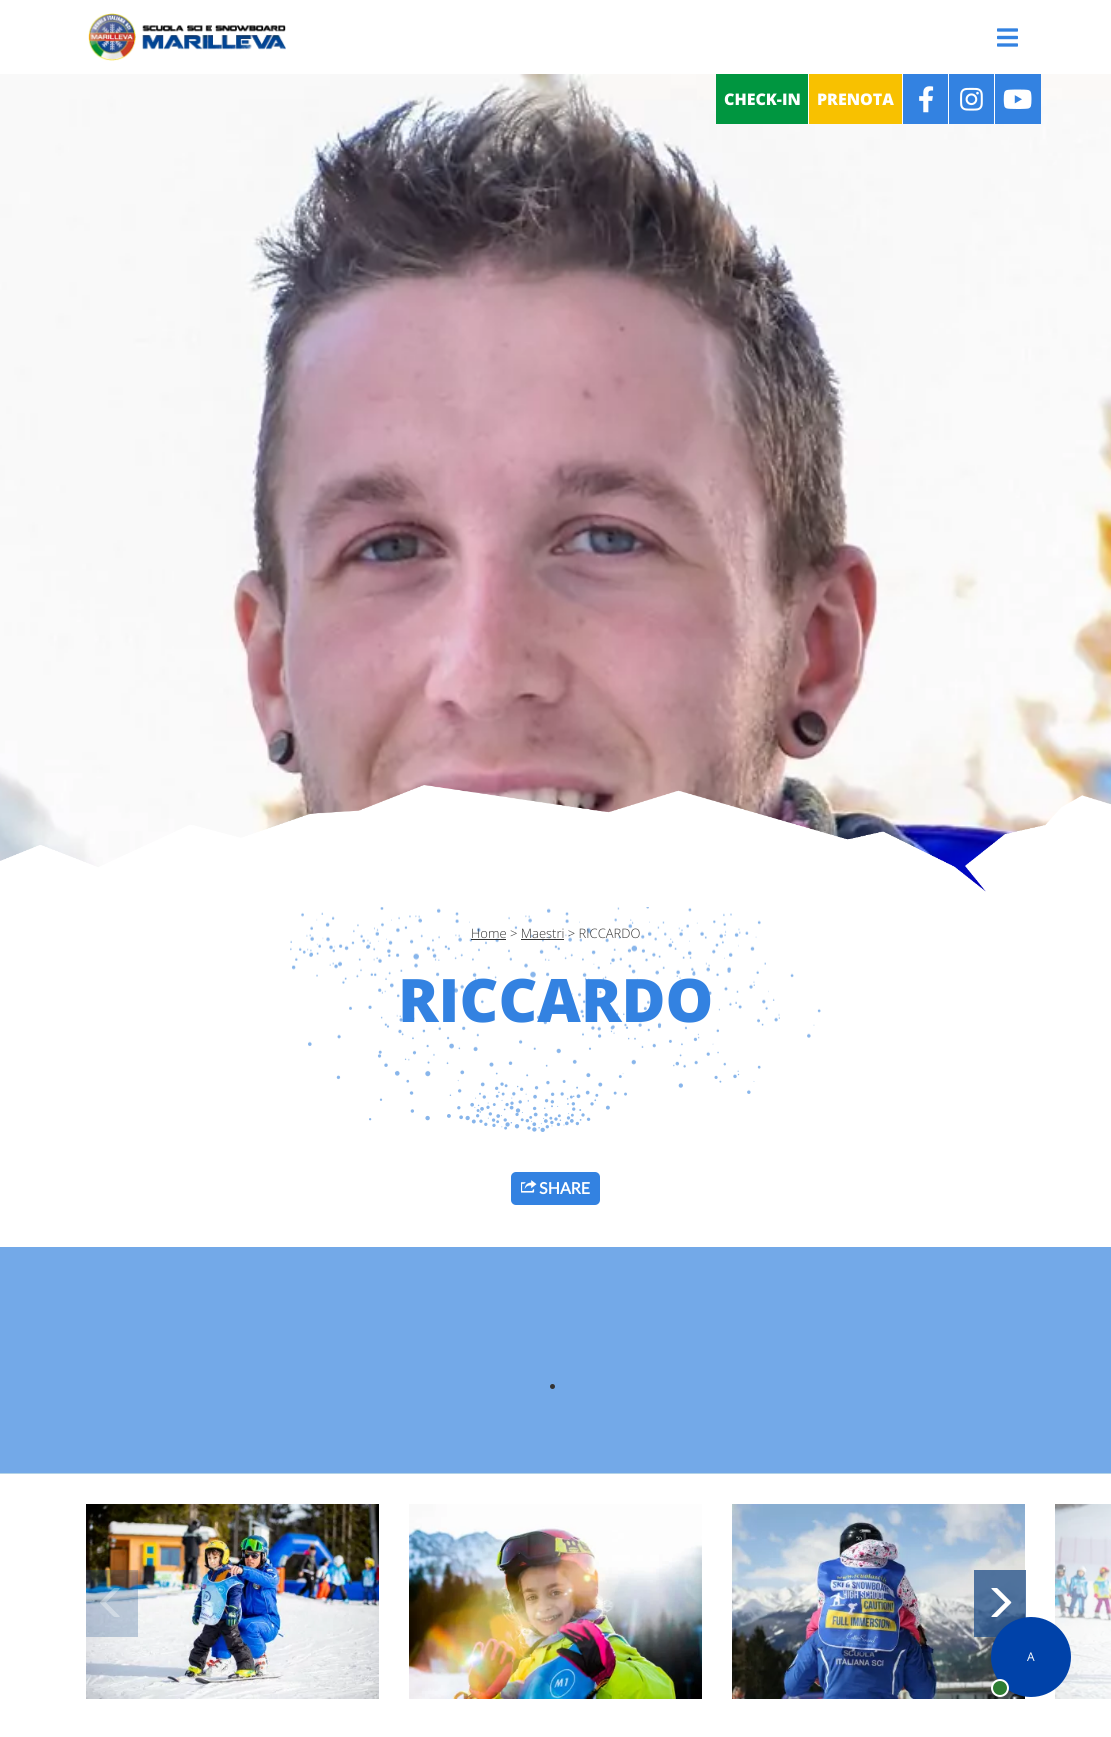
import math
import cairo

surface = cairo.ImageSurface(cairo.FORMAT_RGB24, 1111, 1737)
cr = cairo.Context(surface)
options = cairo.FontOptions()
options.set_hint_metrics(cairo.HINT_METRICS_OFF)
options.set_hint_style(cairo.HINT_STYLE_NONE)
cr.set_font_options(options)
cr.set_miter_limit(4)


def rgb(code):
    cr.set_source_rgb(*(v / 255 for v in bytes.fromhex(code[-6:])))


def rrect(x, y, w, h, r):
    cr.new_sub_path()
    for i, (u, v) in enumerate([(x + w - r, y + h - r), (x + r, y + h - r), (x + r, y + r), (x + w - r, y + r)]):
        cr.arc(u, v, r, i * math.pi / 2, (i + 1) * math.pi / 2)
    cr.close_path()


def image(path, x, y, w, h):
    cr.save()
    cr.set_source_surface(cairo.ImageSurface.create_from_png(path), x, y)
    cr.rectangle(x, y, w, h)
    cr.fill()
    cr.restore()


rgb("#ffffff")
cr.paint()
image("img/1.png", 0, 74, 1111, 818)
image("img/2.png", 88, 13, 198, 48)
image("img/3.png", 997, 28, 21, 19)
for x, y, w, h, color in [
    (716, 74, 92, 50, "#009640"),
    (809, 74, 93, 50, "#f8c100"),
    (808, 74, 1, 50, "#ffffff"),
    (903, 74, 45, 50, "#3382e1"),
    (902, 74, 1, 50, "#ffffff"),
]:
    rgb(color)
    cr.rectangle(x, y, w, h)
    cr.fill()
image("img/4.png", 919, 86, 15, 27)
rgb("#3382e1")
cr.rectangle(949, 74, 45, 50)
cr.fill()
rgb("#ffffff")
cr.rectangle(948, 74, 1, 50)
cr.fill()
image("img/5.png", 960, 87, 23, 24)
rgb("#3382e1")
cr.rectangle(995, 74, 46, 50)
cr.fill()
rgb("#ffffff")
cr.rectangle(994, 74, 1, 50)
cr.fill()
image("img/6.png", 1003, 89, 29, 20)
image("img/7.png", 0, 785, 1111, 122)
image("img/8.png", 290, 907, 531, 225)
rgb("#333333")
cr.rectangle(471, 939, 35, 1)
cr.fill()
cr.rectangle(521, 939, 43, 1)
cr.fill()
rgb("#3382e1")
rrect(511, 1172, 89, 33, 5)
cr.fill()
image("img/9.png", 521, 1180, 16, 13)
rgb("#73a9e8")
cr.rectangle(0, 1247, 1111, 226)
cr.fill()
rgb("#b3d3e7")
cr.rectangle(0, 1473, 1111, 1)
cr.fill()
rgb("#333333")
cr.arc(552.5, 1386.5, 2.5, 0, 2 * math.pi)
cr.fill()
image("img/10.png", 86, 1504, 293, 195)
image("img/11.png", 409, 1504, 293, 195)
image("img/12.png", 732, 1504, 293, 195)
image("img/13.png", 1055, 1504, 56, 195)
cr.set_source_rgba(0.118, 0.302, 0.529, 0.26)
cr.rectangle(86, 1570, 52, 67)
cr.fill()
image("img/14.png", 100, 1588, 20, 29)
cr.set_source_rgba(0.118, 0.302, 0.529, 0.75)
cr.rectangle(974, 1570, 52, 67)
cr.fill()
image("img/15.png", 991, 1588, 21, 29)
rgb("#0042a9")
cr.arc(1031, 1657, 40, 0, 2 * math.pi)
cr.fill()
rgb("#2e7d32")
cr.arc(1000, 1688, 8, 0, 2 * math.pi)
cr.fill_preserve()
rgb("#ffffff")
cr.stroke()
cr.select_font_face("Open Sans ExtraBold")
cr.set_font_size(16)
cr.move_to(724, 105)
cr.show_text("CHECK-IN")
cr.move_to(817, 105)
cr.show_text("PRENOTA")
cr.select_font_face("Open Sans Light")
cr.set_font_size(13)
rgb("#333333")
cr.move_to(471, 938)
cr.show_text("Home > Maestri > RICCARDO")
cr.select_font_face("Open Sans ExtraBold")
cr.set_font_size(60)
rgb("#3382e1")
cr.move_to(398, 1022)
cr.show_text("RICCARDO")
cr.select_font_face("Lato", cairo.FONT_SLANT_NORMAL, cairo.FONT_WEIGHT_BOLD)
cr.set_font_size(16)
rgb("#ffffff")
cr.move_to(539, 1194)
cr.show_text("SHARE")
cr.select_font_face("Open Sans")
cr.set_font_size(12)
cr.move_to(1027, 1661)
cr.show_text("A")
surface.write_to_png("page.png")
